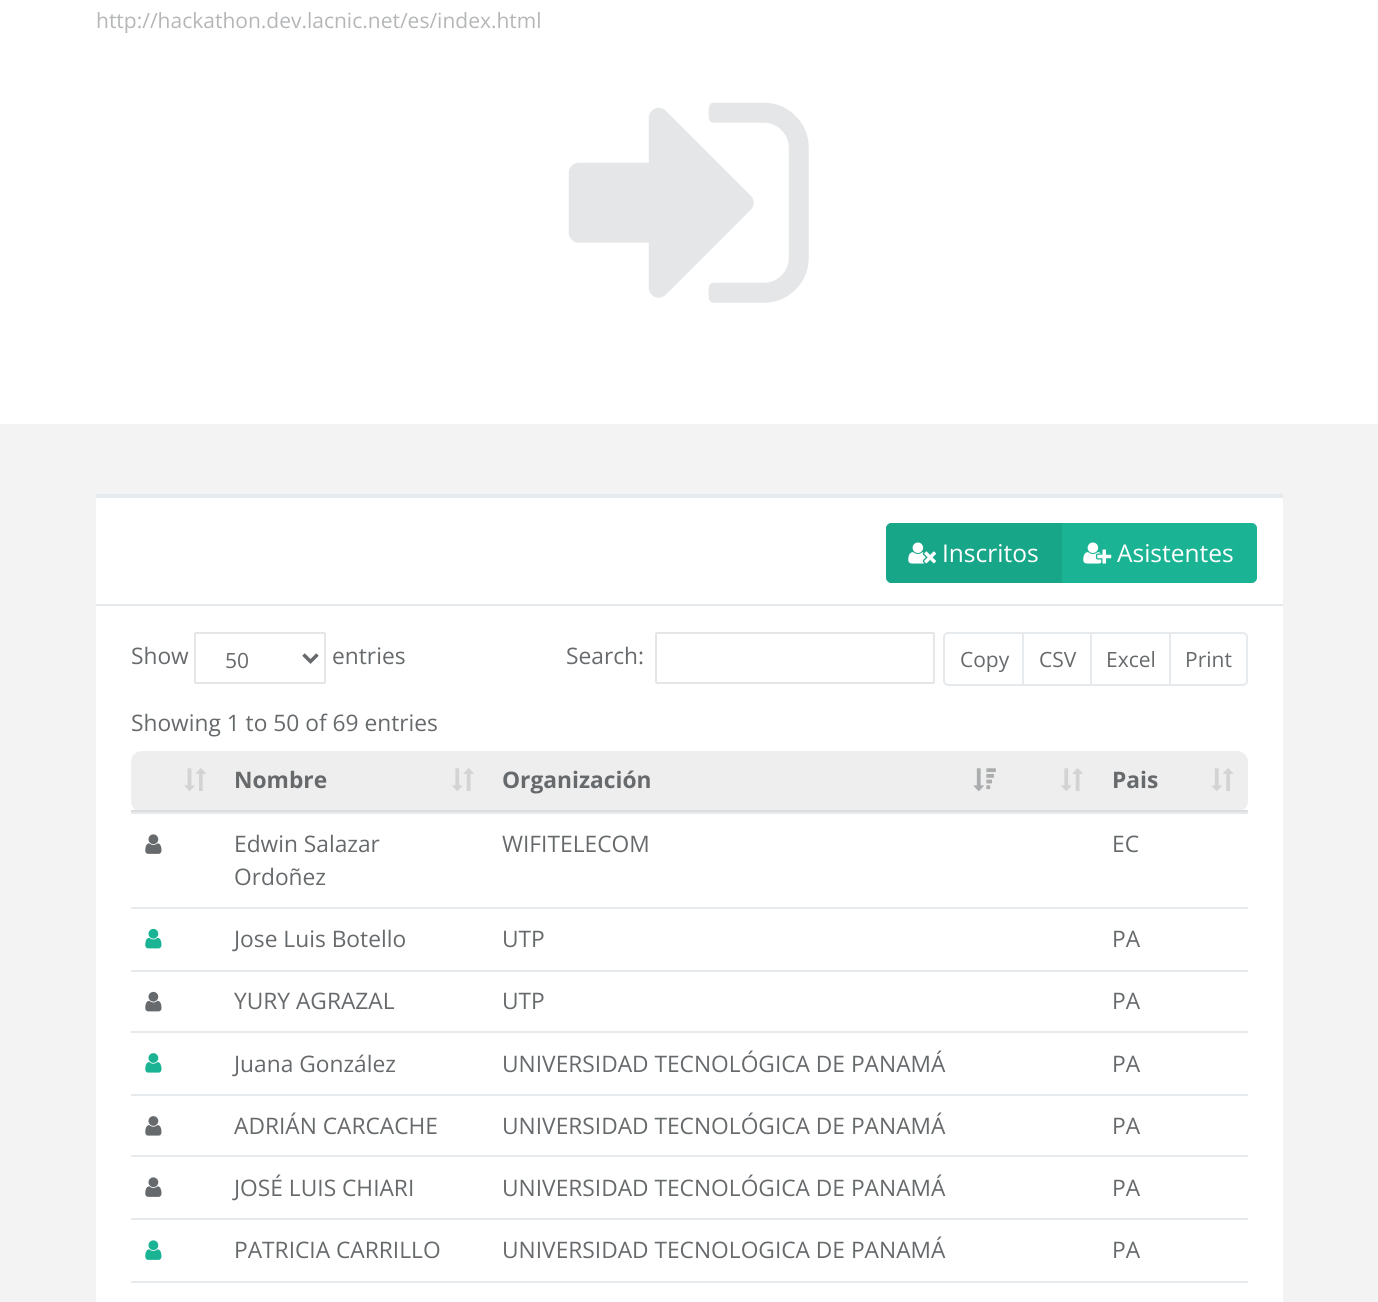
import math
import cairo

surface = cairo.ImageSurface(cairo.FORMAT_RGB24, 1378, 1302)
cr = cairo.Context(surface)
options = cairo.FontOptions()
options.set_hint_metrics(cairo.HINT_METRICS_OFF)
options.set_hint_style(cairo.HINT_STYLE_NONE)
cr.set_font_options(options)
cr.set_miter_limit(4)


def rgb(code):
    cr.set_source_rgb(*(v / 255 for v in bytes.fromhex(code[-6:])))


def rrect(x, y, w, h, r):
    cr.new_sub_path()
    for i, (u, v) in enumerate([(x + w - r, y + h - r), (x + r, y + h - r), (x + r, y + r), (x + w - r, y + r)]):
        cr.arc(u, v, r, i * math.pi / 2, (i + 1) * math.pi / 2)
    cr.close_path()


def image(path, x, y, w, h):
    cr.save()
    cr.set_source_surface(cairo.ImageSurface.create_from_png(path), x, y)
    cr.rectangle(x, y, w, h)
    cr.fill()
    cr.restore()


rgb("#f3f3f4")
cr.paint()
rgb("#ffffff")
cr.rectangle(0, 0, 1378, 424)
cr.fill()
image("img/1.png", 568, 102, 241, 201)
cr.rectangle(96, 498, 1187, 106)
cr.fill()
rgb("#e7eaec")
cr.rectangle(96, 494, 1187, 4)
cr.fill()
rgb("#1ab394")
cr.new_path()
cr.move_to(1062, 524)
cr.line_to(1252, 524)
cr.curve_to(1254, 524, 1256, 526, 1256, 528)
cr.line_to(1256, 578)
cr.curve_to(1256, 580, 1254, 582, 1252, 582)
cr.line_to(1062, 582)
cr.close_path()
cr.fill_preserve()
cr.stroke()
rgb("#18a689")
cr.new_path()
cr.move_to(891, 524)
cr.line_to(1061, 524)
cr.line_to(1061, 582)
cr.line_to(891, 582)
cr.curve_to(889, 582, 887, 580, 887, 578)
cr.line_to(887, 528)
cr.curve_to(887, 526, 889, 524, 891, 524)
cr.close_path()
cr.fill_preserve()
cr.stroke()
image("img/2.png", 908, 542, 29, 22)
image("img/3.png", 1083, 542, 29, 22)
rgb("#ffffff")
cr.rectangle(96, 606, 1187, 696)
cr.fill()
rgb("#e7eaec")
cr.rectangle(96, 604, 1187, 2)
cr.fill()
rrect(195, 633, 130, 50, 1)
rgb("#e5e6e7")
cr.stroke()
cr.new_path()
cr.move_to(303.5, 654.5)
cr.line_to(310.5, 661.5)
cr.line_to(317.5, 654.5)
rgb("#676a6c")
cr.set_line_width(3.5)
cr.stroke()
rrect(656, 633, 278, 50, 1)
rgb("#e5e6e7")
cr.set_line_width(2)
cr.stroke()
cr.new_path()
cr.move_to(948, 633)
cr.line_to(1023, 633)
cr.line_to(1023, 685)
cr.line_to(948, 685)
cr.curve_to(946, 685, 944, 683, 944, 681)
cr.line_to(944, 637)
cr.curve_to(944, 635, 946, 633, 948, 633)
cr.close_path()
rgb("#e7eaec")
cr.stroke()
cr.rectangle(1023, 633, 68, 52)
cr.stroke()
cr.rectangle(1091, 633, 79, 52)
cr.stroke()
rgb("#ffffff")
cr.new_path()
cr.move_to(1170, 633)
cr.line_to(1243, 633)
cr.curve_to(1245, 633, 1247, 635, 1247, 637)
cr.line_to(1247, 681)
cr.curve_to(1247, 683, 1245, 685, 1243, 685)
cr.line_to(1170, 685)
cr.close_path()
cr.fill_preserve()
rgb("#e7eaec")
cr.stroke()
rgb("#eeeeee")
rrect(131, 751, 1117, 61, 11)
cr.fill()
rgb("#dddddd")
cr.rectangle(131, 810, 1117, 2)
cr.fill()
image("img/4.png", 184, 768, 22, 23)
image("img/5.png", 452, 768, 22, 23)
image("img/6.png", 973, 768, 23, 23)
image("img/5.png", 1061, 768, 22, 23)
image("img/7.png", 1211, 768, 23, 23)
rgb("#e7eaec")
cr.rectangle(131, 812, 1117, 2)
cr.fill()
image("img/8.png", 145, 834, 17, 20)
cr.rectangle(131, 907, 1117, 2)
cr.fill()
image("img/9.png", 145, 928, 17, 21)
cr.rectangle(131, 970, 1117, 2)
cr.fill()
image("img/10.png", 145, 991, 17, 21)
cr.rectangle(131, 1031, 1117, 2)
cr.fill()
image("img/11.png", 145, 1053, 17, 20)
cr.rectangle(131, 1094, 1117, 2)
cr.fill()
image("img/12.png", 145, 1116, 17, 20)
cr.rectangle(131, 1155, 1117, 2)
cr.fill()
image("img/8.png", 145, 1177, 17, 20)
cr.rectangle(131, 1218, 1117, 2)
cr.fill()
image("img/13.png", 145, 1240, 17, 20)
cr.rectangle(131, 1281, 1117, 2)
cr.fill()
cr.select_font_face("Open Sans")
cr.set_font_size(21)
rgb("#b4b6b8")
cr.move_to(96, 28)
cr.show_text("http://hackathon.dev.lacnic.net/es/index.html")
cr.set_font_size(24.5)
rgb("#ffffff")
cr.move_to(942, 562)
cr.show_text("Inscritos")
cr.move_to(1117, 562)
cr.show_text("Asistentes")
cr.set_font_size(22.75)
rgb("#676a6c")
cr.move_to(131, 664)
cr.show_text("Show")
cr.set_font_size(21)
cr.move_to(225, 668)
cr.show_text("50")
cr.set_font_size(22.75)
cr.move_to(332, 664)
cr.show_text("entries")
cr.move_to(566, 664)
cr.show_text("Search:")
cr.set_font_size(21)
for x, y, s in [
    (960, 667, "Copy"),
    (1039, 667, "CSV"),
    (1106, 667, "Excel"),
    (1185, 667, "Print"),
]:
    cr.move_to(x, y)
    cr.show_text(s)
cr.set_font_size(22.75)
cr.move_to(131, 731)
cr.show_text("Showing 1 to 50 of 69 entries")
cr.select_font_face("Open Sans", cairo.FONT_SLANT_NORMAL, cairo.FONT_WEIGHT_BOLD)
for x, y, s in [
    (234, 788, "Nombre"),
    (502, 788, "Organización"),
    (1112, 788, "Pais"),
]:
    cr.move_to(x, y)
    cr.show_text(s)
cr.select_font_face("Open Sans")
for x, y, s in [
    (234, 852, "Edwin Salazar"),
    (234, 885, "Ordoñez"),
    (502, 852, "WIFITELECOM"),
    (1112, 852, "EC"),
    (234, 947, "Jose Luis Botello"),
    (502, 947, "UTP"),
    (1112, 947, "PA"),
    (234, 1009, "YURY AGRAZAL"),
    (502, 1009, "UTP"),
    (1112, 1009, "PA"),
    (234, 1072, "Juana González"),
    (502, 1072, "UNIVERSIDAD TECNOLÓGICA DE PANAMÁ"),
    (1112, 1072, "PA"),
    (234, 1134, "ADRIÁN CARCACHE"),
    (502, 1134, "UNIVERSIDAD TECNOLÓGICA DE PANAMÁ"),
    (1112, 1134, "PA"),
    (234, 1196, "JOSÉ LUIS CHIARI"),
    (502, 1196, "UNIVERSIDAD TECNOLÓGICA DE PANAMÁ"),
    (1112, 1196, "PA"),
    (234, 1258, "PATRICIA CARRILLO"),
    (502, 1258, "UNIVERSIDAD TECNOLOGICA DE PANAMÁ"),
    (1112, 1258, "PA"),
]:
    cr.move_to(x, y)
    cr.show_text(s)
surface.write_to_png("page.png")
